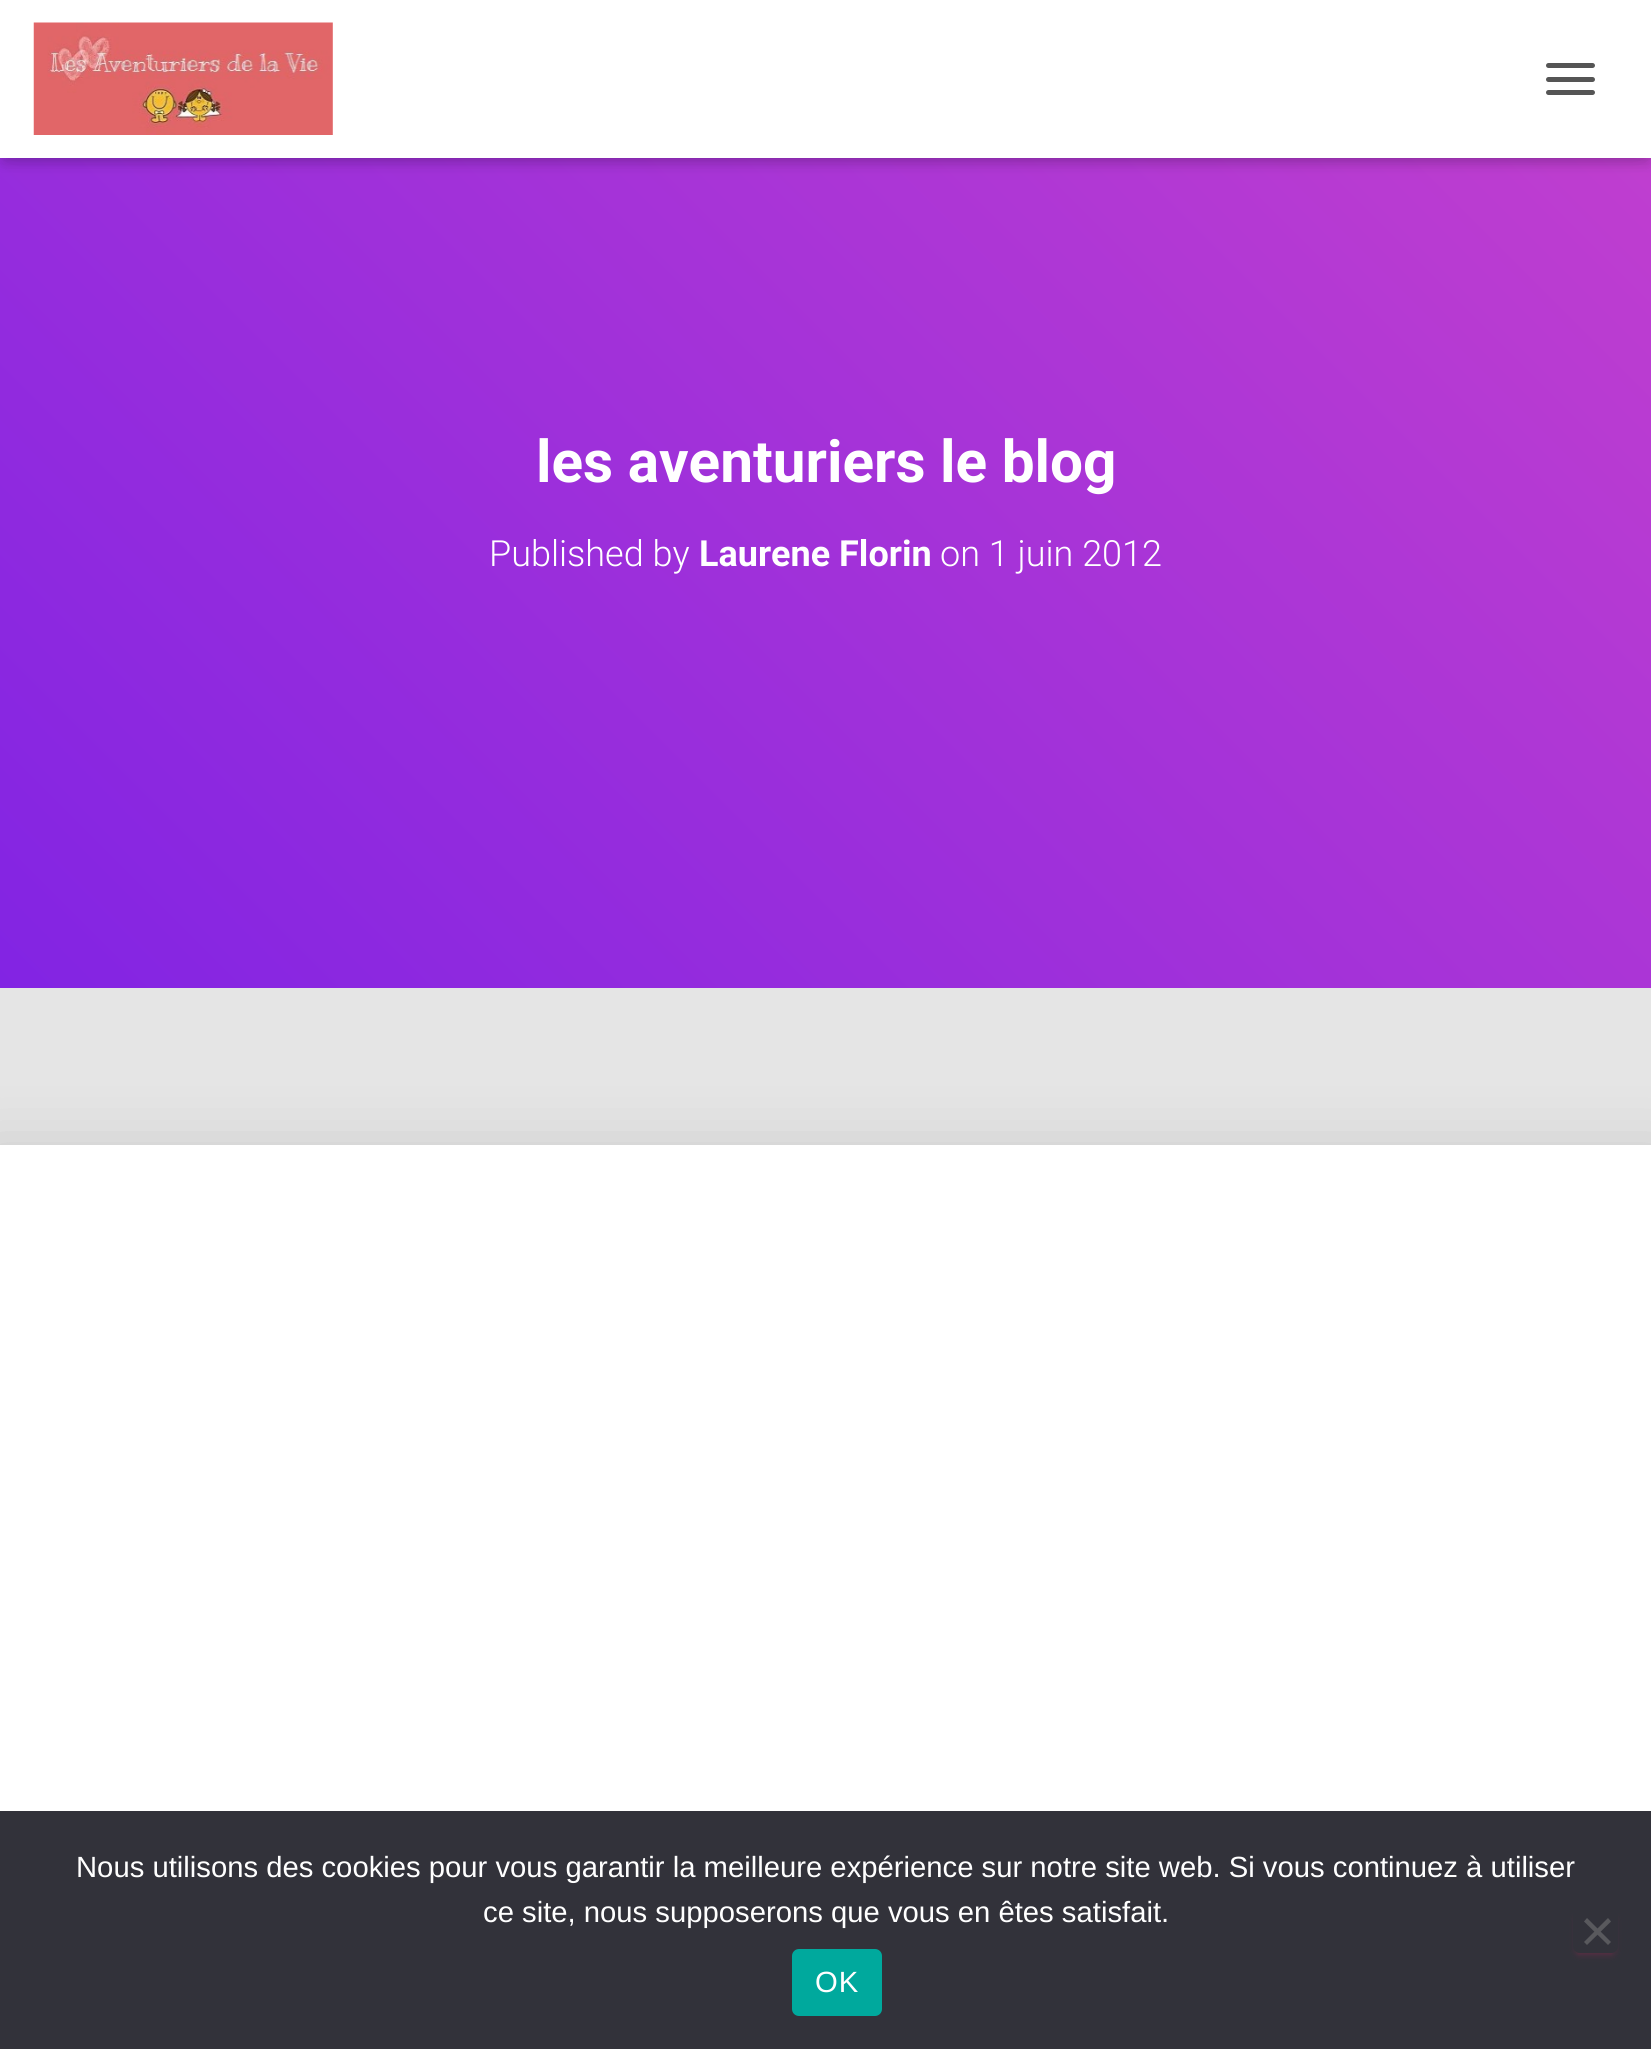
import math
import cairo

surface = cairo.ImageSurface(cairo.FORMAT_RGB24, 1651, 2049)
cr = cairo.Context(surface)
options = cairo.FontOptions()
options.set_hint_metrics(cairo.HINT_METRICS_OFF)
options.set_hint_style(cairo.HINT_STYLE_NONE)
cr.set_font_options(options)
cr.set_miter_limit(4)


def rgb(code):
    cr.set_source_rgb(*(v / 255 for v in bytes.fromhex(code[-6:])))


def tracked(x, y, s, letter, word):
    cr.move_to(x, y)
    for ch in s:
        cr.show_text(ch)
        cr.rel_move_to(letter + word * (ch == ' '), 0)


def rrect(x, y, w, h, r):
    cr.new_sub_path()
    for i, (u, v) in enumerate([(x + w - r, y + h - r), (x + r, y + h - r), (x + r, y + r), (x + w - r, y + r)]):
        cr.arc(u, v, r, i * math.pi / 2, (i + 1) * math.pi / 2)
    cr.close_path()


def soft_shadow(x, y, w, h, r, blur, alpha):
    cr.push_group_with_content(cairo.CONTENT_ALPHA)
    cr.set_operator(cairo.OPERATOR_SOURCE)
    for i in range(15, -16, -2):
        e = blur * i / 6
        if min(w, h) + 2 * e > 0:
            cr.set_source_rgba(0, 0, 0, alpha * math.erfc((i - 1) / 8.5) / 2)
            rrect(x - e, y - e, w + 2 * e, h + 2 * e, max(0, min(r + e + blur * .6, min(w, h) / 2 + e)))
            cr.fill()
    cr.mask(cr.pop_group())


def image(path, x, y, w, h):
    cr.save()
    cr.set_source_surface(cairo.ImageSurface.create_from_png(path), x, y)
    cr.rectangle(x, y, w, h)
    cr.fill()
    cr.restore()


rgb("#e5e5e5")
cr.paint()
gradient = cairo.LinearGradient(159, 1146, 1493, -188)
gradient.add_color_stop_rgba(0, 0.51, 0.141, 0.89, 1)
gradient.add_color_stop_rgba(1, 0.769, 0.251, 0.808, 1)
cr.set_source(gradient)
cr.rectangle(0, 158, 1651, 830)
cr.fill()
rgb("#000000")
soft_shadow(5, 14, 1642, 148, 0, 5.5, 0.1)
soft_shadow(0, 2, 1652, 158, 0, 11, 0.12)
soft_shadow(14, 16, 1624, 130, 0, 11, 0.42)
rgb("#ffffff")
cr.rectangle(0, 0, 1651, 158)
cr.fill()
image("img/1.png", 33, 22, 300, 113)
rgb("#555555")
rrect(1546, 63, 49, 5, 2.5)
cr.fill()
rrect(1546, 77, 49, 5, 2.5)
cr.fill()
rrect(1546, 90, 49, 5, 2.5)
cr.fill()
rgb("#000000")
soft_shadow(-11, 1148, 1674, 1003, 0, 34, 0.12)
rgb("#ffffff")
cr.rectangle(0, 1145, 1651, 666)
cr.fill()
rgb("#32323a")
cr.rectangle(0, 1811, 1651, 238)
cr.fill()
cr.save()
cr.set_fill_rule(cairo.FILL_RULE_EVEN_ODD)
cr.new_path()
cr.move_to(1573, 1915)
cr.line_to(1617, 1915)
cr.line_to(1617, 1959)
cr.line_to(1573, 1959)
cr.close_path()
cr.move_to(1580, 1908)
cr.line_to(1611, 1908)
cr.curve_to(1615, 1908, 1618, 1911, 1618, 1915)
cr.line_to(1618, 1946)
cr.curve_to(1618, 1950, 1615, 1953, 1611, 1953)
cr.line_to(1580, 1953)
cr.curve_to(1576, 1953, 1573, 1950, 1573, 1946)
cr.line_to(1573, 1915)
cr.curve_to(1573, 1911, 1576, 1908, 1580, 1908)
cr.close_path()
cr.clip()
rgb("#8e284f")
soft_shadow(1577, 1919, 36, 36, 2, 1, 0.2)
cr.restore()
cr.save()
cr.set_fill_rule(cairo.FILL_RULE_EVEN_ODD)
cr.new_path()
cr.move_to(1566, 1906)
cr.line_to(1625, 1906)
cr.line_to(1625, 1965)
cr.line_to(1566, 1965)
cr.close_path()
cr.move_to(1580, 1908)
cr.line_to(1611, 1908)
cr.curve_to(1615, 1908, 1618, 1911, 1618, 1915)
cr.line_to(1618, 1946)
cr.curve_to(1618, 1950, 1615, 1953, 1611, 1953)
cr.line_to(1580, 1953)
cr.curve_to(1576, 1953, 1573, 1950, 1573, 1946)
cr.line_to(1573, 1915)
cr.curve_to(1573, 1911, 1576, 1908, 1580, 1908)
cr.close_path()
cr.clip()
rgb("#8e284f")
soft_shadow(1573, 1913, 45, 45, 7, 2, 0.14)
cr.restore()
rgb("#59595d")
cr.new_path()
cr.move_to(1608, 1918)
cr.line_to(1611, 1921.5)
cr.line_to(1587, 1945)
cr.line_to(1584, 1942)
cr.close_path()
cr.fill()
cr.new_path()
cr.move_to(1584, 1921.5)
cr.line_to(1587, 1918)
cr.line_to(1611, 1942)
cr.line_to(1608, 1945)
cr.close_path()
cr.fill()
rgb("#00a99d")
rrect(792, 1949, 90, 67, 7)
cr.fill()
cr.select_font_face("Roboto", cairo.FONT_SLANT_NORMAL, cairo.FONT_WEIGHT_BOLD)
cr.set_font_size(58.5)
rgb("#ffffff")
cr.move_to(536, 482)
cr.show_text("les aventuriers le blog")
cr.select_font_face("Roboto Light")
cr.set_font_size(36)
cr.move_to(489, 566)
cr.show_text("Published by")
cr.select_font_face("Roboto", cairo.FONT_SLANT_NORMAL, cairo.FONT_WEIGHT_BOLD)
cr.move_to(699, 566)
cr.show_text("Laurene Florin")
cr.select_font_face("Roboto Light")
cr.move_to(940, 566)
cr.show_text("on 1 juin 2012")
cr.select_font_face("Liberation Sans")
cr.set_font_size(29.25)
cr.move_to(76, 1877)
cr.show_text("Nous utilisons des cookies pour vous garantir la meilleure expérience sur notre site web. Si vous continuez à utiliser")
cr.move_to(483, 1922)
cr.show_text("ce site, nous supposerons que vous en êtes satisfait.")
tracked(815, 1992, "OK", 1, 0)
surface.write_to_png("page.png")
